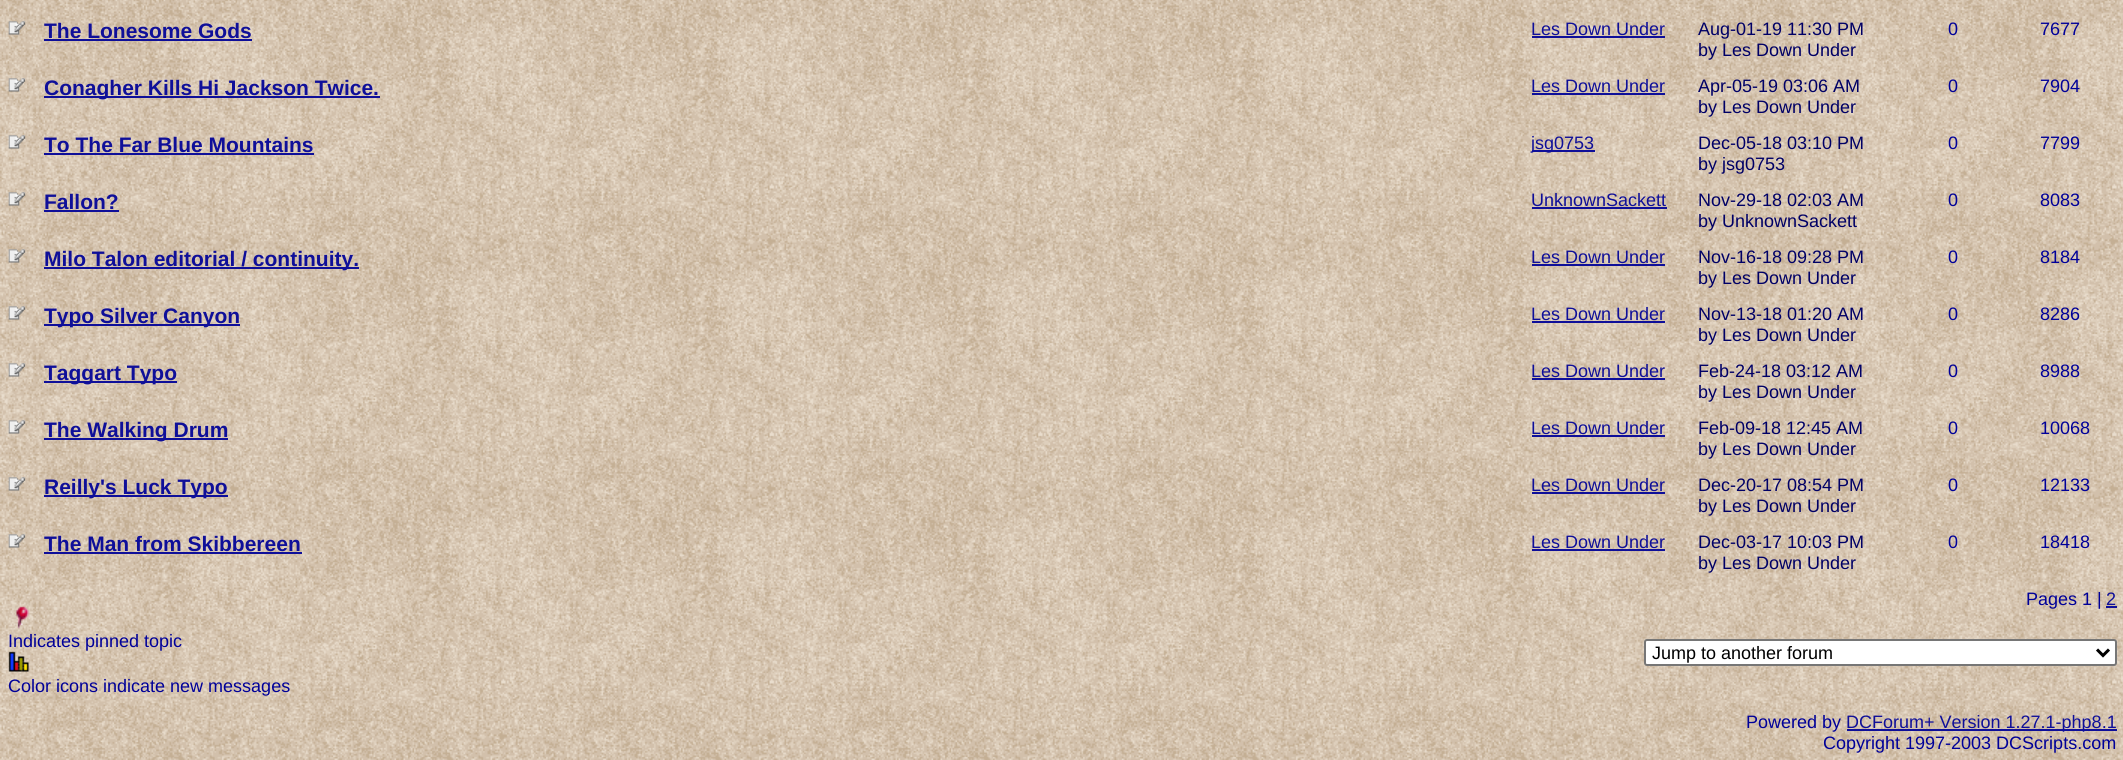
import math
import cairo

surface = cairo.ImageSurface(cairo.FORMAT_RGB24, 2123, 760)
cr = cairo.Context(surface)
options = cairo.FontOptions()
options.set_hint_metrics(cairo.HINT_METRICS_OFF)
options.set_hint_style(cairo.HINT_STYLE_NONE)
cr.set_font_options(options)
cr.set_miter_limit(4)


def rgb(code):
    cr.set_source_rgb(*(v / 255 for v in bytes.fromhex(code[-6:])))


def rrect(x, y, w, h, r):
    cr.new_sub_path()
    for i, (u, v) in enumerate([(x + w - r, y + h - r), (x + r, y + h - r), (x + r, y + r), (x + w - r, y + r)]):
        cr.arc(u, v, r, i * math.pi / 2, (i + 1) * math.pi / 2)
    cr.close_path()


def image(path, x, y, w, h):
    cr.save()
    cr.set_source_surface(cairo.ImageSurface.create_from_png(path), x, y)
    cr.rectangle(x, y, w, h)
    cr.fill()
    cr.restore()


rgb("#ffffff")
cr.paint()
image("img/1.png", 0, 0, 2123, 760)
image("img/2.png", 8, 21, 18, 14)
rgb("#0f0f99")
cr.rectangle(44, 39, 208, 2)
cr.fill()
cr.rectangle(1532, 36, 133, 2)
cr.fill()
image("img/3.png", 8, 78, 18, 14)
cr.rectangle(44, 96, 336, 2)
cr.fill()
cr.rectangle(1532, 93, 133, 2)
cr.fill()
image("img/4.png", 8, 135, 18, 14)
cr.rectangle(44, 153, 270, 2)
cr.fill()
cr.rectangle(1532, 150, 63, 2)
cr.fill()
image("img/5.png", 8, 192, 18, 14)
cr.rectangle(44, 210, 75, 2)
cr.fill()
cr.rectangle(1532, 207, 135, 2)
cr.fill()
image("img/6.png", 8, 249, 18, 14)
cr.rectangle(44, 267, 315, 2)
cr.fill()
cr.rectangle(1532, 264, 133, 2)
cr.fill()
image("img/7.png", 8, 306, 18, 14)
cr.rectangle(44, 324, 196, 2)
cr.fill()
cr.rectangle(1532, 321, 133, 2)
cr.fill()
image("img/8.png", 8, 363, 18, 14)
cr.rectangle(44, 381, 133, 2)
cr.fill()
cr.rectangle(1532, 378, 133, 2)
cr.fill()
image("img/9.png", 8, 420, 18, 14)
cr.rectangle(44, 438, 184, 2)
cr.fill()
cr.rectangle(1532, 435, 133, 2)
cr.fill()
image("img/10.png", 8, 477, 18, 14)
cr.rectangle(44, 495, 184, 2)
cr.fill()
cr.rectangle(1532, 492, 133, 2)
cr.fill()
image("img/11.png", 8, 534, 18, 14)
cr.rectangle(44, 552, 258, 2)
cr.fill()
cr.rectangle(1532, 549, 133, 2)
cr.fill()
image("img/12.png", 16, 606, 13, 23)
image("img/13.png", 8, 651, 21, 21)
cr.rectangle(2106, 606, 11, 2)
cr.fill()
rgb("#ffffff")
rrect(1645, 640, 471, 25, 2)
cr.fill_preserve()
rgb("#767676")
cr.stroke()
cr.new_path()
cr.move_to(2097, 649.5)
cr.line_to(2103, 655.5)
cr.line_to(2109, 649.5)
rgb("#000000")
cr.set_line_width(3)
cr.stroke()
rgb("#0f0f99")
cr.rectangle(1847, 729, 270, 2)
cr.fill()
cr.select_font_face("Liberation Sans", cairo.FONT_SLANT_NORMAL, cairo.FONT_WEIGHT_BOLD)
cr.set_font_size(21)
cr.move_to(44, 38)
cr.show_text("The Lonesome Gods")
cr.select_font_face("Liberation Sans")
cr.set_font_size(18)
cr.move_to(1531, 35)
cr.show_text("Les Down Under")
rgb("#000066")
cr.move_to(1698, 35)
cr.show_text("Aug-01-19 11:30 PM")
cr.move_to(1698, 56)
cr.show_text("by Les Down Under")
rgb("#000099")
cr.move_to(1948, 35)
cr.show_text("0")
cr.move_to(2040, 35)
cr.show_text("7677")
cr.select_font_face("Liberation Sans", cairo.FONT_SLANT_NORMAL, cairo.FONT_WEIGHT_BOLD)
cr.set_font_size(21)
rgb("#0f0f99")
cr.move_to(44, 95)
cr.show_text("Conagher Kills Hi Jackson Twice.")
cr.select_font_face("Liberation Sans")
cr.set_font_size(18)
cr.move_to(1531, 92)
cr.show_text("Les Down Under")
rgb("#000066")
cr.move_to(1698, 92)
cr.show_text("Apr-05-19 03:06 AM")
cr.move_to(1698, 113)
cr.show_text("by Les Down Under")
rgb("#000099")
cr.move_to(1948, 92)
cr.show_text("0")
cr.move_to(2040, 92)
cr.show_text("7904")
cr.select_font_face("Liberation Sans", cairo.FONT_SLANT_NORMAL, cairo.FONT_WEIGHT_BOLD)
cr.set_font_size(21)
rgb("#0f0f99")
cr.move_to(44, 152)
cr.show_text("To The Far Blue Mountains")
cr.select_font_face("Liberation Sans")
cr.set_font_size(18)
cr.move_to(1531, 149)
cr.show_text("jsg0753")
rgb("#000066")
cr.move_to(1698, 149)
cr.show_text("Dec-05-18 03:10 PM")
cr.move_to(1698, 170)
cr.show_text("by jsg0753")
rgb("#000099")
cr.move_to(1948, 149)
cr.show_text("0")
cr.move_to(2040, 149)
cr.show_text("7799")
cr.select_font_face("Liberation Sans", cairo.FONT_SLANT_NORMAL, cairo.FONT_WEIGHT_BOLD)
cr.set_font_size(21)
rgb("#0f0f99")
cr.move_to(44, 209)
cr.show_text("Fallon?")
cr.select_font_face("Liberation Sans")
cr.set_font_size(18)
cr.move_to(1531, 206)
cr.show_text("UnknownSackett")
rgb("#000066")
cr.move_to(1698, 206)
cr.show_text("Nov-29-18 02:03 AM")
cr.move_to(1698, 227)
cr.show_text("by UnknownSackett")
rgb("#000099")
cr.move_to(1948, 206)
cr.show_text("0")
cr.move_to(2040, 206)
cr.show_text("8083")
cr.select_font_face("Liberation Sans", cairo.FONT_SLANT_NORMAL, cairo.FONT_WEIGHT_BOLD)
cr.set_font_size(21)
rgb("#0f0f99")
cr.move_to(44, 266)
cr.show_text("Milo Talon editorial / continuity.")
cr.select_font_face("Liberation Sans")
cr.set_font_size(18)
cr.move_to(1531, 263)
cr.show_text("Les Down Under")
rgb("#000066")
cr.move_to(1698, 263)
cr.show_text("Nov-16-18 09:28 PM")
cr.move_to(1698, 284)
cr.show_text("by Les Down Under")
rgb("#000099")
cr.move_to(1948, 263)
cr.show_text("0")
cr.move_to(2040, 263)
cr.show_text("8184")
cr.select_font_face("Liberation Sans", cairo.FONT_SLANT_NORMAL, cairo.FONT_WEIGHT_BOLD)
cr.set_font_size(21)
rgb("#0f0f99")
cr.move_to(44, 323)
cr.show_text("Typo Silver Canyon")
cr.select_font_face("Liberation Sans")
cr.set_font_size(18)
cr.move_to(1531, 320)
cr.show_text("Les Down Under")
rgb("#000066")
cr.move_to(1698, 320)
cr.show_text("Nov-13-18 01:20 AM")
cr.move_to(1698, 341)
cr.show_text("by Les Down Under")
rgb("#000099")
cr.move_to(1948, 320)
cr.show_text("0")
cr.move_to(2040, 320)
cr.show_text("8286")
cr.select_font_face("Liberation Sans", cairo.FONT_SLANT_NORMAL, cairo.FONT_WEIGHT_BOLD)
cr.set_font_size(21)
rgb("#0f0f99")
cr.move_to(44, 380)
cr.show_text("Taggart Typo")
cr.select_font_face("Liberation Sans")
cr.set_font_size(18)
cr.move_to(1531, 377)
cr.show_text("Les Down Under")
rgb("#000066")
cr.move_to(1698, 377)
cr.show_text("Feb-24-18 03:12 AM")
cr.move_to(1698, 398)
cr.show_text("by Les Down Under")
rgb("#000099")
cr.move_to(1948, 377)
cr.show_text("0")
cr.move_to(2040, 377)
cr.show_text("8988")
cr.select_font_face("Liberation Sans", cairo.FONT_SLANT_NORMAL, cairo.FONT_WEIGHT_BOLD)
cr.set_font_size(21)
rgb("#0f0f99")
cr.move_to(44, 437)
cr.show_text("The Walking Drum")
cr.select_font_face("Liberation Sans")
cr.set_font_size(18)
cr.move_to(1531, 434)
cr.show_text("Les Down Under")
rgb("#000066")
cr.move_to(1698, 434)
cr.show_text("Feb-09-18 12:45 AM")
cr.move_to(1698, 455)
cr.show_text("by Les Down Under")
rgb("#000099")
cr.move_to(1948, 434)
cr.show_text("0")
cr.move_to(2040, 434)
cr.show_text("10068")
cr.select_font_face("Liberation Sans", cairo.FONT_SLANT_NORMAL, cairo.FONT_WEIGHT_BOLD)
cr.set_font_size(21)
rgb("#0f0f99")
cr.move_to(44, 494)
cr.show_text("Reilly's Luck Typo")
cr.select_font_face("Liberation Sans")
cr.set_font_size(18)
cr.move_to(1531, 491)
cr.show_text("Les Down Under")
rgb("#000066")
cr.move_to(1698, 491)
cr.show_text("Dec-20-17 08:54 PM")
cr.move_to(1698, 512)
cr.show_text("by Les Down Under")
rgb("#000099")
cr.move_to(1948, 491)
cr.show_text("0")
cr.move_to(2040, 491)
cr.show_text("12133")
cr.select_font_face("Liberation Sans", cairo.FONT_SLANT_NORMAL, cairo.FONT_WEIGHT_BOLD)
cr.set_font_size(21)
rgb("#0f0f99")
cr.move_to(44, 551)
cr.show_text("The Man from Skibbereen")
cr.select_font_face("Liberation Sans")
cr.set_font_size(18)
cr.move_to(1531, 548)
cr.show_text("Les Down Under")
rgb("#000066")
cr.move_to(1698, 548)
cr.show_text("Dec-03-17 10:03 PM")
cr.move_to(1698, 569)
cr.show_text("by Les Down Under")
rgb("#000099")
for x, y, s in [
    (1948, 548, "0"),
    (2040, 548, "18418"),
    (8, 647, "Indicates pinned topic"),
    (8, 692, "Color icons indicate new messages"),
    (2026, 605, "Pages 1 |"),
]:
    cr.move_to(x, y)
    cr.show_text(s)
rgb("#0f0f99")
cr.move_to(2106, 605)
cr.show_text("2")
rgb("#000000")
cr.move_to(1652, 659)
cr.show_text("Jump to another forum")
rgb("#000099")
cr.move_to(1746, 728)
cr.show_text("Powered by")
rgb("#0f0f99")
cr.move_to(1846, 728)
cr.show_text("DCForum+ Version 1.27.1-php8.1")
rgb("#000099")
cr.move_to(1823, 749)
cr.show_text("Copyright 1997-2003 DCScripts.com")
surface.write_to_png("page.png")
